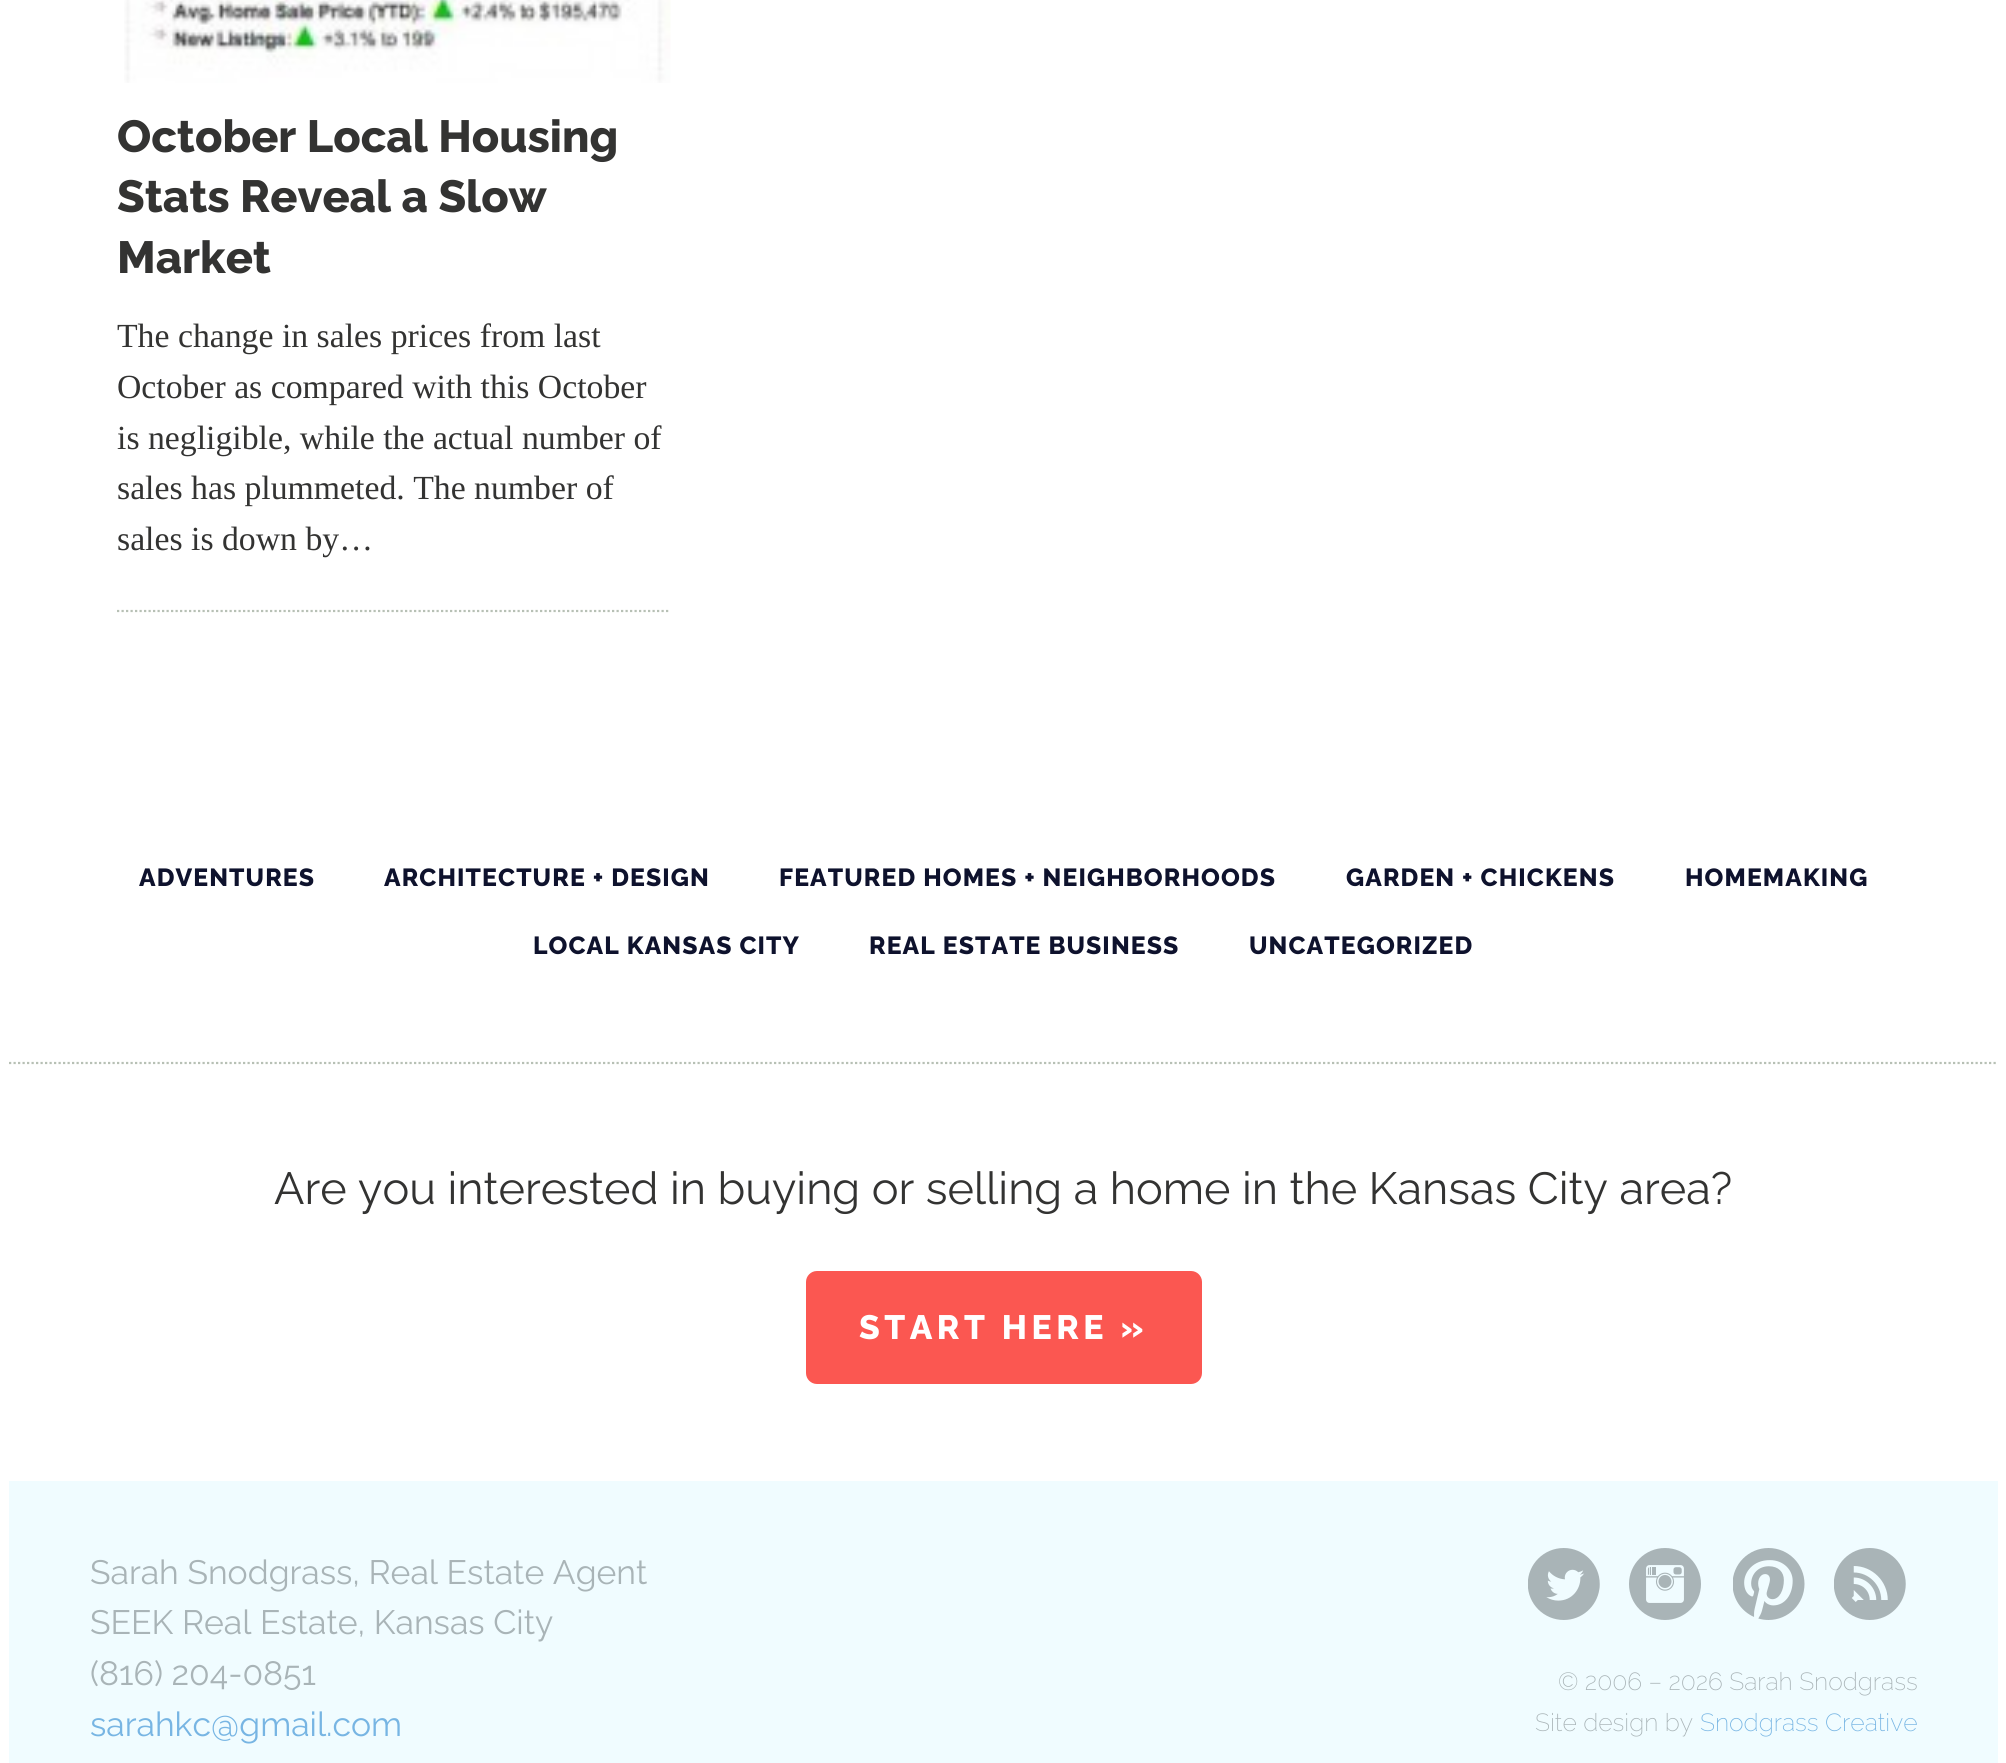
import math
import cairo

surface = cairo.ImageSurface(cairo.FORMAT_RGB24, 2006, 1763)
cr = cairo.Context(surface)
options = cairo.FontOptions()
options.set_hint_metrics(cairo.HINT_METRICS_OFF)
options.set_hint_style(cairo.HINT_STYLE_NONE)
cr.set_font_options(options)
cr.set_miter_limit(4)


def rgb(code):
    cr.set_source_rgb(*(v / 255 for v in bytes.fromhex(code[-6:])))


def tracked(x, y, s, letter, word):
    cr.move_to(x, y)
    for ch in s:
        cr.show_text(ch)
        cr.rel_move_to(letter + word * (ch == ' '), 0)


def rrect(x, y, w, h, r):
    cr.new_sub_path()
    for i, (u, v) in enumerate([(x + w - r, y + h - r), (x + r, y + h - r), (x + r, y + r), (x + w - r, y + r)]):
        cr.arc(u, v, r, i * math.pi / 2, (i + 1) * math.pi / 2)
    cr.close_path()


def image(path, x, y, w, h):
    cr.save()
    cr.set_source_surface(cairo.ImageSurface.create_from_png(path), x, y)
    cr.rectangle(x, y, w, h)
    cr.fill()
    cr.restore()


rgb("#ffffff")
cr.paint()
cr.new_path()
cr.move_to(117, 611)
cr.line_to(670.5, 611)
rgb("#b7c0b5")
cr.set_line_width(2.2)
cr.set_dash([2.25, 2.25])
cr.stroke()
image("img/1.png", 124, 0, 547, 83)
cr.new_path()
cr.move_to(9, 1063)
cr.line_to(1998, 1063)
cr.stroke()
rgb("#fb5751")
rrect(806, 1271, 396, 113, 11)
cr.fill()
rgb("#f0fcff")
cr.rectangle(9, 1481, 1989, 282)
cr.fill()
image("img/2.png", 1528, 1548, 72, 72)
image("img/3.png", 1629, 1548, 72, 72)
image("img/4.png", 1733, 1548, 72, 72)
image("img/5.png", 1834, 1548, 72, 72)
cr.select_font_face("Raleway ExtraBold")
cr.set_font_size(45)
rgb("#333332")
for x, y, s in [
    (117, 152, "October Local Housing"),
    (117, 212, "Stats Reveal a Slow"),
    (117, 273, "Market"),
]:
    cr.move_to(x, y)
    cr.show_text(s)
cr.select_font_face("Liberation Serif")
cr.set_font_size(33.75)
for x, y, s in [
    (117, 347, "The change in sales prices from last"),
    (117, 398, "October as compared with this October"),
    (117, 449, "is negligible, while the actual number of"),
    (117, 499, "sales has plummeted. The number of"),
    (117, 550, "sales is down by…"),
]:
    cr.move_to(x, y)
    cr.show_text(s)
cr.select_font_face("Raleway ExtraBold")
cr.set_font_size(24.75)
rgb("#0e122d")
for x, y, s in [
    (139, 886, "ADVENTURES"),
    (384, 886, "ARCHITECTURE + DESIGN"),
    (779, 886, "FEATURED HOMES + NEIGHBORHOODS"),
    (1346, 886, "GARDEN + CHICKENS"),
    (1685, 886, "HOMEMAKING"),
    (533, 954, "LOCAL KANSAS CITY"),
    (869, 954, "REAL ESTATE BUSINESS"),
    (1249, 954, "UNCATEGORIZED"),
]:
    tracked(x, y, s, 1.1, 0)
cr.select_font_face("Raleway")
cr.set_font_size(45)
rgb("#333332")
cr.move_to(274, 1204)
cr.show_text("Are you interested in buying or selling a home in the Kansas City area?")
cr.select_font_face("Raleway ExtraBold")
cr.set_font_size(33.75)
rgb("#ffffff")
tracked(859, 1339, "START HERE »", 4.5, 0)
cr.select_font_face("Raleway")
rgb("#a9b4b7")
for x, y, s in [
    (90, 1584, "Sarah Snodgrass, Real Estate Agent"),
    (90, 1634, "SEEK Real Estate, Kansas City"),
    (90, 1685, "(816) 204-0851"),
]:
    cr.move_to(x, y)
    cr.show_text(s)
rgb("#77b5e3")
cr.move_to(90, 1736)
cr.show_text("sarahkc@gmail.com")
cr.select_font_face("Raleway ExtraLight")
cr.set_font_size(24.75)
rgb("#a9b4b7")
cr.move_to(1558, 1690)
cr.show_text("© 2006 – 2026 Sarah Snodgrass")
cr.move_to(1535, 1731)
cr.show_text("Site design by")
rgb("#77b5e3")
cr.move_to(1700, 1731)
cr.show_text("Snodgrass Creative")
surface.write_to_png("page.png")
